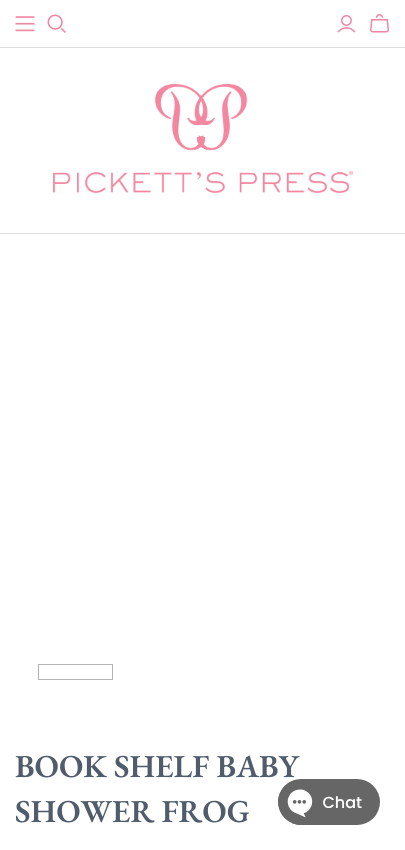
import math
import cairo

surface = cairo.ImageSurface(cairo.FORMAT_RGB24, 405, 850)
cr = cairo.Context(surface)
options = cairo.FontOptions()
options.set_hint_metrics(cairo.HINT_METRICS_OFF)
options.set_hint_style(cairo.HINT_STYLE_NONE)
cr.set_font_options(options)
cr.set_miter_limit(4)


def rgb(code):
    cr.set_source_rgb(*(v / 255 for v in bytes.fromhex(code[-6:])))


def image(path, x, y, w, h):
    cr.save()
    cr.set_source_surface(cairo.ImageSurface.create_from_png(path), x, y)
    cr.rectangle(x, y, w, h)
    cr.fill()
    cr.restore()


rgb("#ffffff")
cr.paint()
rgb("#dddddd")
cr.rectangle(0, 233, 405, 1)
cr.fill()
image("img/1.png", 15, 16, 20, 16)
image("img/2.png", 47, 14, 19, 19)
image("img/3.png", 337, 15, 19, 18)
image("img/4.png", 370, 14, 19, 19)
cr.rectangle(0, 47, 405, 1)
cr.fill()
image("img/5.png", 53, 84, 300, 109)
cr.rectangle(38.5, 664.5, 74, 15)
rgb("#b3b3b3")
cr.set_line_width(1)
cr.stroke()
image("img/6.png", 278, 779, 102, 46)
cr.select_font_face("EB Garamond SemiBold")
cr.set_font_size(32)
rgb("#505c6c")
cr.move_to(15, 777)
cr.show_text("BOOK SHELF BABY")
cr.move_to(15, 822)
cr.show_text("SHOWER FROG")
surface.write_to_png("page.png")
